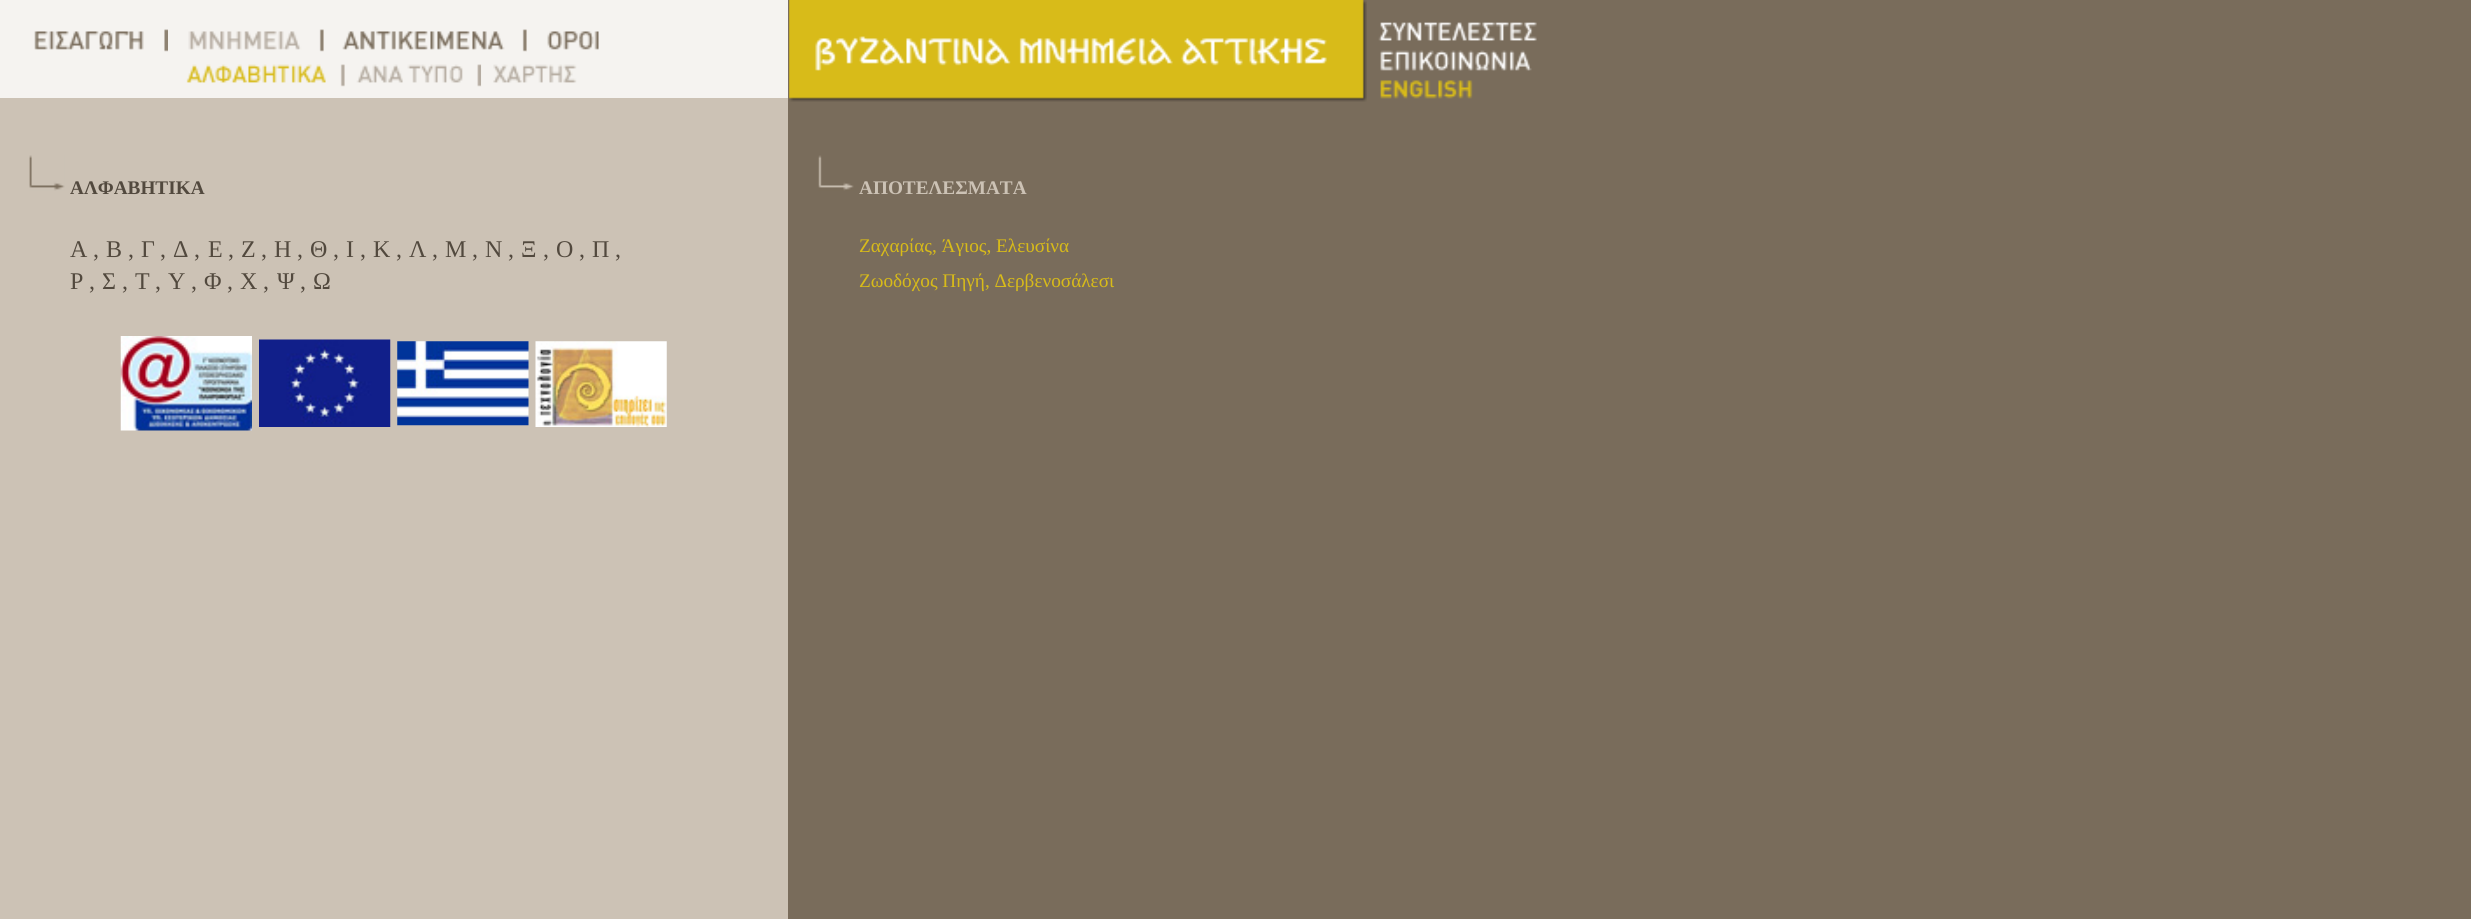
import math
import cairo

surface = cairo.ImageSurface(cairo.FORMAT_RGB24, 2471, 919)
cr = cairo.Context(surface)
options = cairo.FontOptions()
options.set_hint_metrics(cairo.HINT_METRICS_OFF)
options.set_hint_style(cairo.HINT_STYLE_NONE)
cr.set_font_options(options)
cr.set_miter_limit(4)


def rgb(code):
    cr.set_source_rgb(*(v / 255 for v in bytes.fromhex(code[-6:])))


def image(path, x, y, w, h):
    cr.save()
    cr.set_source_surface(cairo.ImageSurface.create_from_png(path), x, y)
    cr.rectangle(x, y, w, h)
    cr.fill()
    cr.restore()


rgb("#796c5b")
cr.paint()
rgb("#ccc2b5")
cr.rectangle(0, 98, 788, 821)
cr.fill()
rgb("#f5f3f0")
cr.rectangle(0, 0, 788, 98)
cr.fill()
image("img/1.png", 34, 29, 134, 23)
image("img/2.png", 188, 29, 136, 23)
image("img/3.png", 189, 29, 135, 22)
image("img/4.png", 323, 29, 204, 23)
image("img/5.png", 323, 29, 204, 22)
image("img/6.png", 526, 29, 73, 22)
cr.set_source_rgba(0.969, 0.953, 0.937, 0.25)
cr.rectangle(526, 29, 1, 22)
cr.fill()
image("img/7.png", 186, 64, 159, 23)
image("img/8.png", 344, 64, 1, 22)
image("img/9.png", 344, 64, 138, 23)
image("img/10.png", 344, 64, 138, 22)
image("img/11.png", 481, 64, 96, 22)
cr.set_source_rgba(0.957, 0.953, 0.937, 0.75)
cr.rectangle(481, 65, 1, 21)
cr.fill()
image("img/12.png", 29, 155, 36, 36)
image("img/13.png", 120, 336, 132, 95)
image("img/14.png", 259, 339, 132, 88)
image("img/15.png", 397, 341, 132, 85)
image("img/16.png", 535, 341, 132, 86)
image("img/17.png", 789, 0, 578, 102)
image("img/18.png", 1378, 22, 159, 19)
image("img/19.png", 1380, 50, 152, 21)
image("img/20.png", 1380, 80, 93, 19)
image("img/21.png", 818, 155, 36, 36)
cr.select_font_face("Liberation Serif", cairo.FONT_SLANT_NORMAL, cairo.FONT_WEIGHT_BOLD)
cr.set_font_size(19.25)
rgb("#52493e")
cr.move_to(70, 194)
cr.show_text("ΑΛΦΑΒΗΤΙΚΑ")
cr.select_font_face("Liberation Serif")
cr.set_font_size(24)
for x, y, s in [
    (70, 257, "Α"),
    (93, 257, ","),
    (106, 257, "Β"),
    (128, 257, ","),
    (141, 257, "Γ"),
    (160, 257, ","),
    (173, 257, "Δ"),
    (194, 257, ","),
    (208, 257, "Ε"),
    (228, 257, ","),
    (241, 257, "Ζ"),
    (261, 257, ","),
    (274, 257, "Η"),
    (297, 257, ","),
    (310, 257, "Θ"),
    (333, 257, ","),
    (346, 257, "Ι"),
    (360, 257, ","),
    (373, 257, "Κ"),
    (396, 257, ","),
    (409, 257, "Λ"),
    (432, 257, ","),
    (445, 257, "Μ"),
    (472, 257, ","),
    (485, 257, "Ν"),
    (508, 257, ","),
    (521, 257, "Ξ"),
    (543, 257, ","),
    (556, 257, "Ο"),
    (579, 257, ","),
    (592, 257, "Π"),
    (615, 257, ","),
    (70, 289, "Ρ"),
    (89, 289, ","),
    (102, 289, "Σ"),
    (122, 289, ","),
    (135, 289, "Τ"),
    (155, 289, ","),
    (168, 289, "Υ"),
    (191, 289, ","),
    (204, 289, "Φ"),
    (227, 289, ","),
    (240, 289, "Χ"),
    (263, 289, ","),
    (277, 289, "Ψ"),
    (300, 289, ","),
    (313, 289, "Ω"),
]:
    cr.move_to(x, y)
    cr.show_text(s)
cr.select_font_face("Liberation Serif", cairo.FONT_SLANT_NORMAL, cairo.FONT_WEIGHT_BOLD)
cr.set_font_size(19.25)
rgb("#ccc2b5")
cr.move_to(859, 194)
cr.show_text("ΑΠΟΤΕΛΕΣΜΑΤΑ")
cr.select_font_face("Liberation Serif")
rgb("#d8bb19")
cr.move_to(859, 252)
cr.show_text("Ζαχαρίας, Άγιος, Ελευσίνα")
cr.move_to(859, 287)
cr.show_text("Ζωοδόχος Πηγή, Δερβενοσάλεσι")
surface.write_to_png("page.png")
